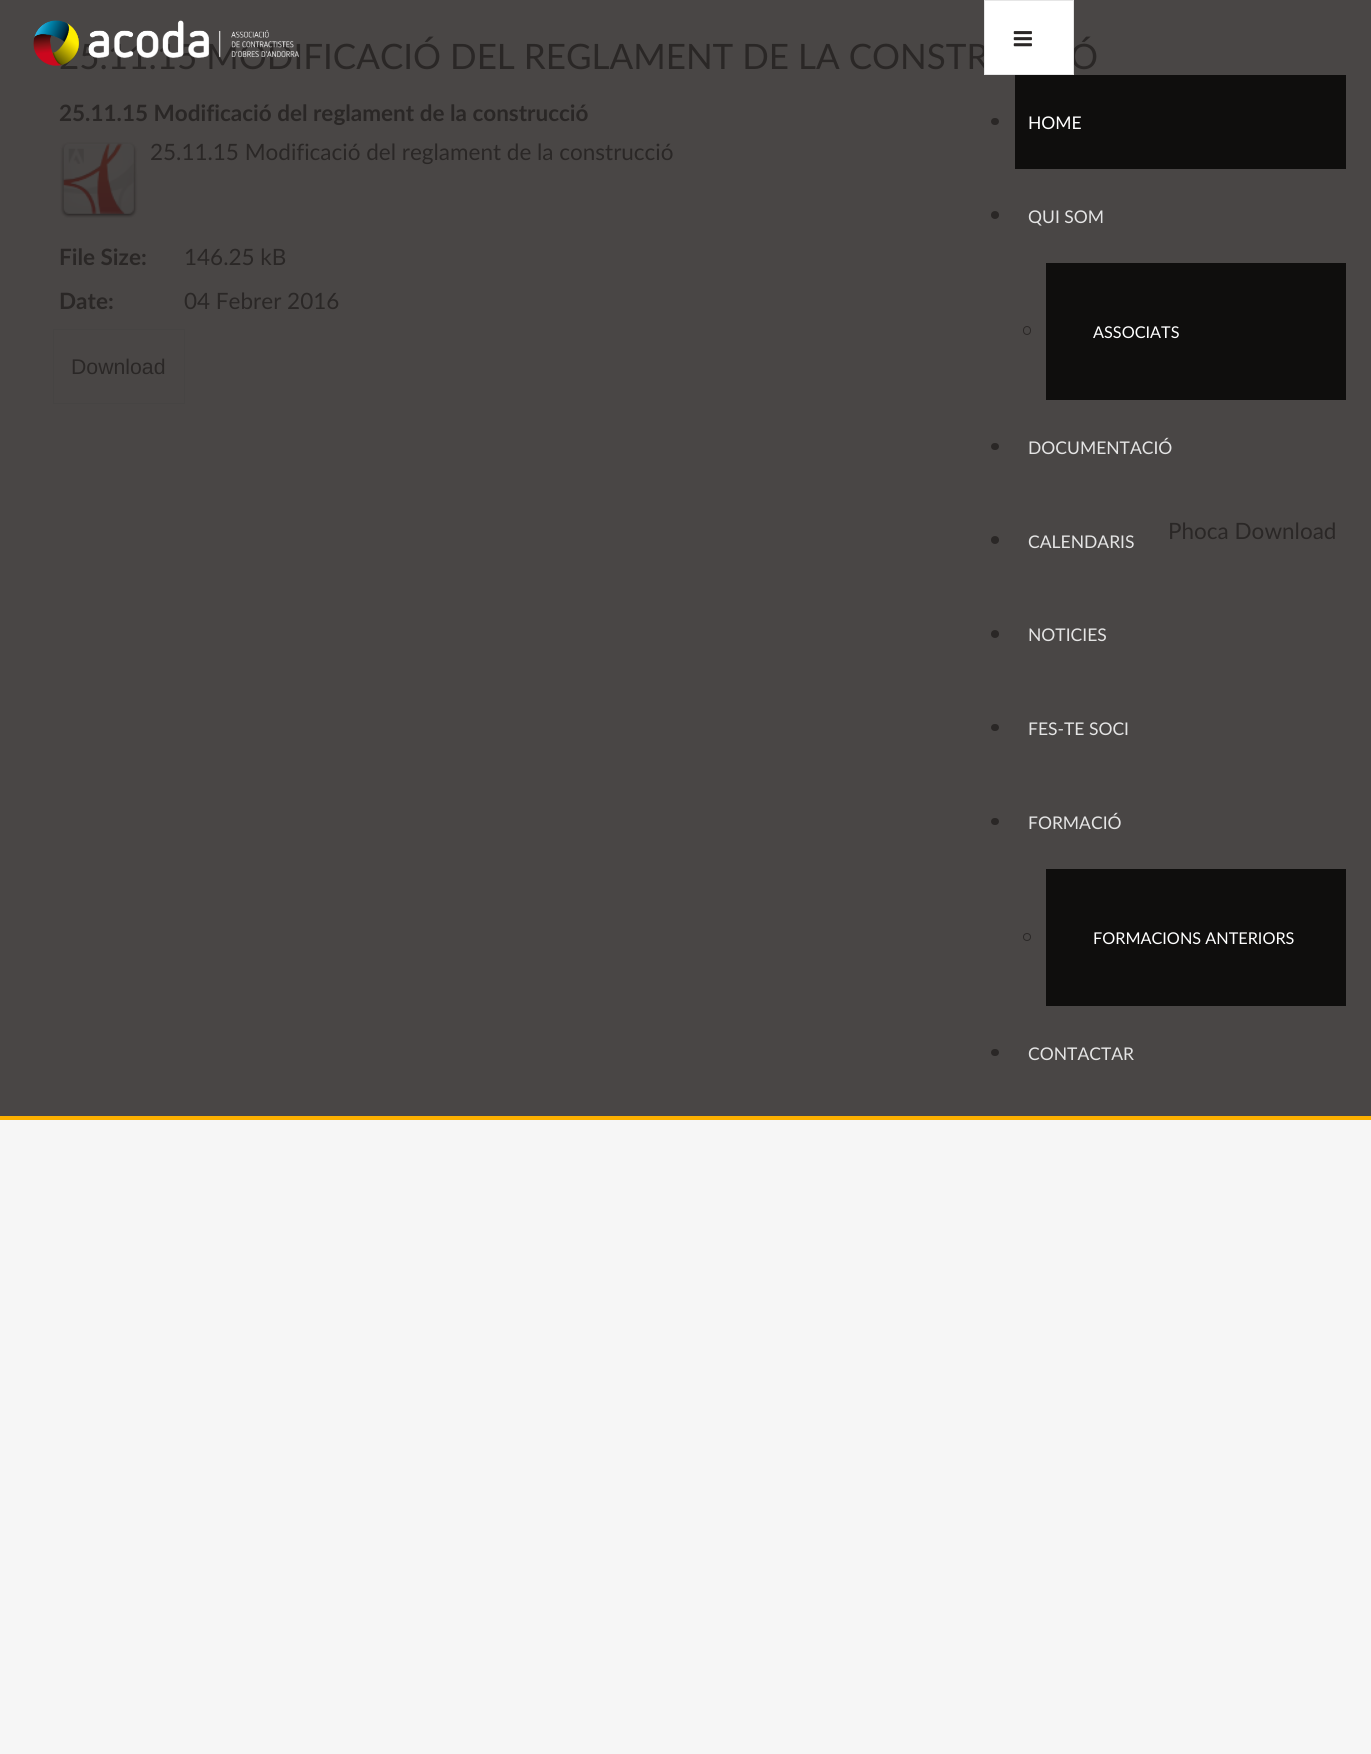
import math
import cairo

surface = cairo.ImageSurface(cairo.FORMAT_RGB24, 1371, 1754)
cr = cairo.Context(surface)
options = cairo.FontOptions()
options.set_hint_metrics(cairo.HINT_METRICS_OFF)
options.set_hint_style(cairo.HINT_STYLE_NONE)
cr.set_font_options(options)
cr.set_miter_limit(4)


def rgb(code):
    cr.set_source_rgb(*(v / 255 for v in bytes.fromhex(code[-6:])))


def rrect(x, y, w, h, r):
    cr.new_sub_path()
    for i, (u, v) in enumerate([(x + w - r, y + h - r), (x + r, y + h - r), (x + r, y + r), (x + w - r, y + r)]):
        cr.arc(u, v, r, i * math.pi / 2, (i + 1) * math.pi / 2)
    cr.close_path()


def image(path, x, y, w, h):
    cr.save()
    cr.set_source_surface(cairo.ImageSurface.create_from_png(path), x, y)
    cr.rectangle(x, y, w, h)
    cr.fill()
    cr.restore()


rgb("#f6f6f6")
cr.paint()
rgb("#494645")
cr.rectangle(0, 0, 1371, 1116)
cr.fill()
image("img/1.png", 60, 142, 78, 76)
cr.rectangle(53.5, 329.5, 131, 74)
rgb("#464443")
cr.set_line_width(1)
cr.stroke()
rgb("#fcb000")
cr.rectangle(0, 1116, 1371, 4)
cr.fill()
rgb("#2a2726")
rrect(991, 118, 8, 7, 3.5)
cr.fill()
rgb("#0f0e0d")
cr.rectangle(1015, 75, 331, 94)
cr.fill()
rgb("#2a2726")
cr.arc(995, 215, 4, 0, 2 * math.pi)
cr.fill()
rgb("#0f0e0d")
cr.rectangle(1046, 263, 300, 137)
cr.fill()
rrect(1023.5, 326.5, 7, 8, 3.5)
rgb("#2a2726")
cr.stroke()
rrect(991, 443, 8, 7, 3.5)
cr.fill()
cr.arc(995, 540, 4, 0, 2 * math.pi)
cr.fill()
cr.arc(995, 634, 4, 0, 2 * math.pi)
cr.fill()
rrect(991, 724, 8, 7, 3.5)
cr.fill()
rrect(991, 818, 8, 7, 3.5)
cr.fill()
rgb("#0f0e0d")
cr.rectangle(1046, 869, 300, 137)
cr.fill()
cr.arc(1027, 937, 3.5, 0, 2 * math.pi)
rgb("#2a2726")
cr.stroke()
rrect(991, 1049, 8, 7, 3.5)
cr.fill()
cr.select_font_face("Lato")
cr.set_font_size(35)
cr.move_to(59, 69)
cr.show_text("25.11.15 MODIFICACIÓ DEL REGLAMENT DE LA CONSTR")
cr.move_to(1070, 69)
cr.show_text("Ó")
cr.select_font_face("Lato", cairo.FONT_SLANT_NORMAL, cairo.FONT_WEIGHT_BOLD)
cr.set_font_size(22.5)
cr.move_to(59, 121)
cr.show_text("25.11.15 Modificació del reglament de la construcció")
cr.select_font_face("Lato")
cr.move_to(150, 160)
cr.show_text("25.11.15 Modificació del reglament de la construcció")
cr.select_font_face("Lato", cairo.FONT_SLANT_NORMAL, cairo.FONT_WEIGHT_BOLD)
cr.move_to(59, 265)
cr.show_text("File Size:")
cr.select_font_face("Lato")
cr.move_to(184, 265)
cr.show_text("146.25 kB")
cr.select_font_face("Lato", cairo.FONT_SLANT_NORMAL, cairo.FONT_WEIGHT_BOLD)
cr.move_to(59, 309)
cr.show_text("Date:")
cr.select_font_face("Lato")
cr.move_to(184, 309)
cr.show_text("04 Febrer 2016")
cr.select_font_face("Liberation Sans")
cr.set_font_size(21.25)
cr.move_to(71, 374)
cr.show_text("Download")
cr.select_font_face("Lato")
cr.set_font_size(22.5)
cr.move_to(1168, 539)
cr.show_text("Phoca Download")
image("img/2.png", 33, 20, 266, 46)
rgb("#ffffff")
cr.rectangle(984.5, 0.5, 89, 74)
cr.fill_preserve()
rgb("#e6e6e6")
cr.stroke()
image("img/3.png", 1013, 31, 19, 16)
cr.set_font_size(17.5)
rgb("#ffffff")
cr.move_to(1028, 129)
cr.show_text("HOME")
rgb("#e4e4e4")
cr.move_to(1028, 223)
cr.show_text("QUI SOM")
cr.set_font_size(16.25)
rgb("#ffffff")
cr.move_to(1093, 338)
cr.show_text("ASSOCIATS")
cr.set_font_size(17.5)
rgb("#e4e4e4")
for x, y, s in [
    (1028, 454, "DOCUMENTACIÓ"),
    (1028, 548, "CALENDARIS"),
    (1028, 641, "NOTICIES"),
    (1028, 735, "FES-TE SOCI"),
    (1028, 829, "FORMACIÓ"),
]:
    cr.move_to(x, y)
    cr.show_text(s)
cr.set_font_size(16.25)
rgb("#ffffff")
cr.move_to(1093, 944)
cr.show_text("FORMACIONS ANTERIORS")
cr.set_font_size(17.5)
rgb("#e4e4e4")
cr.move_to(1028, 1060)
cr.show_text("CONTACTAR")
surface.write_to_png("page.png")
